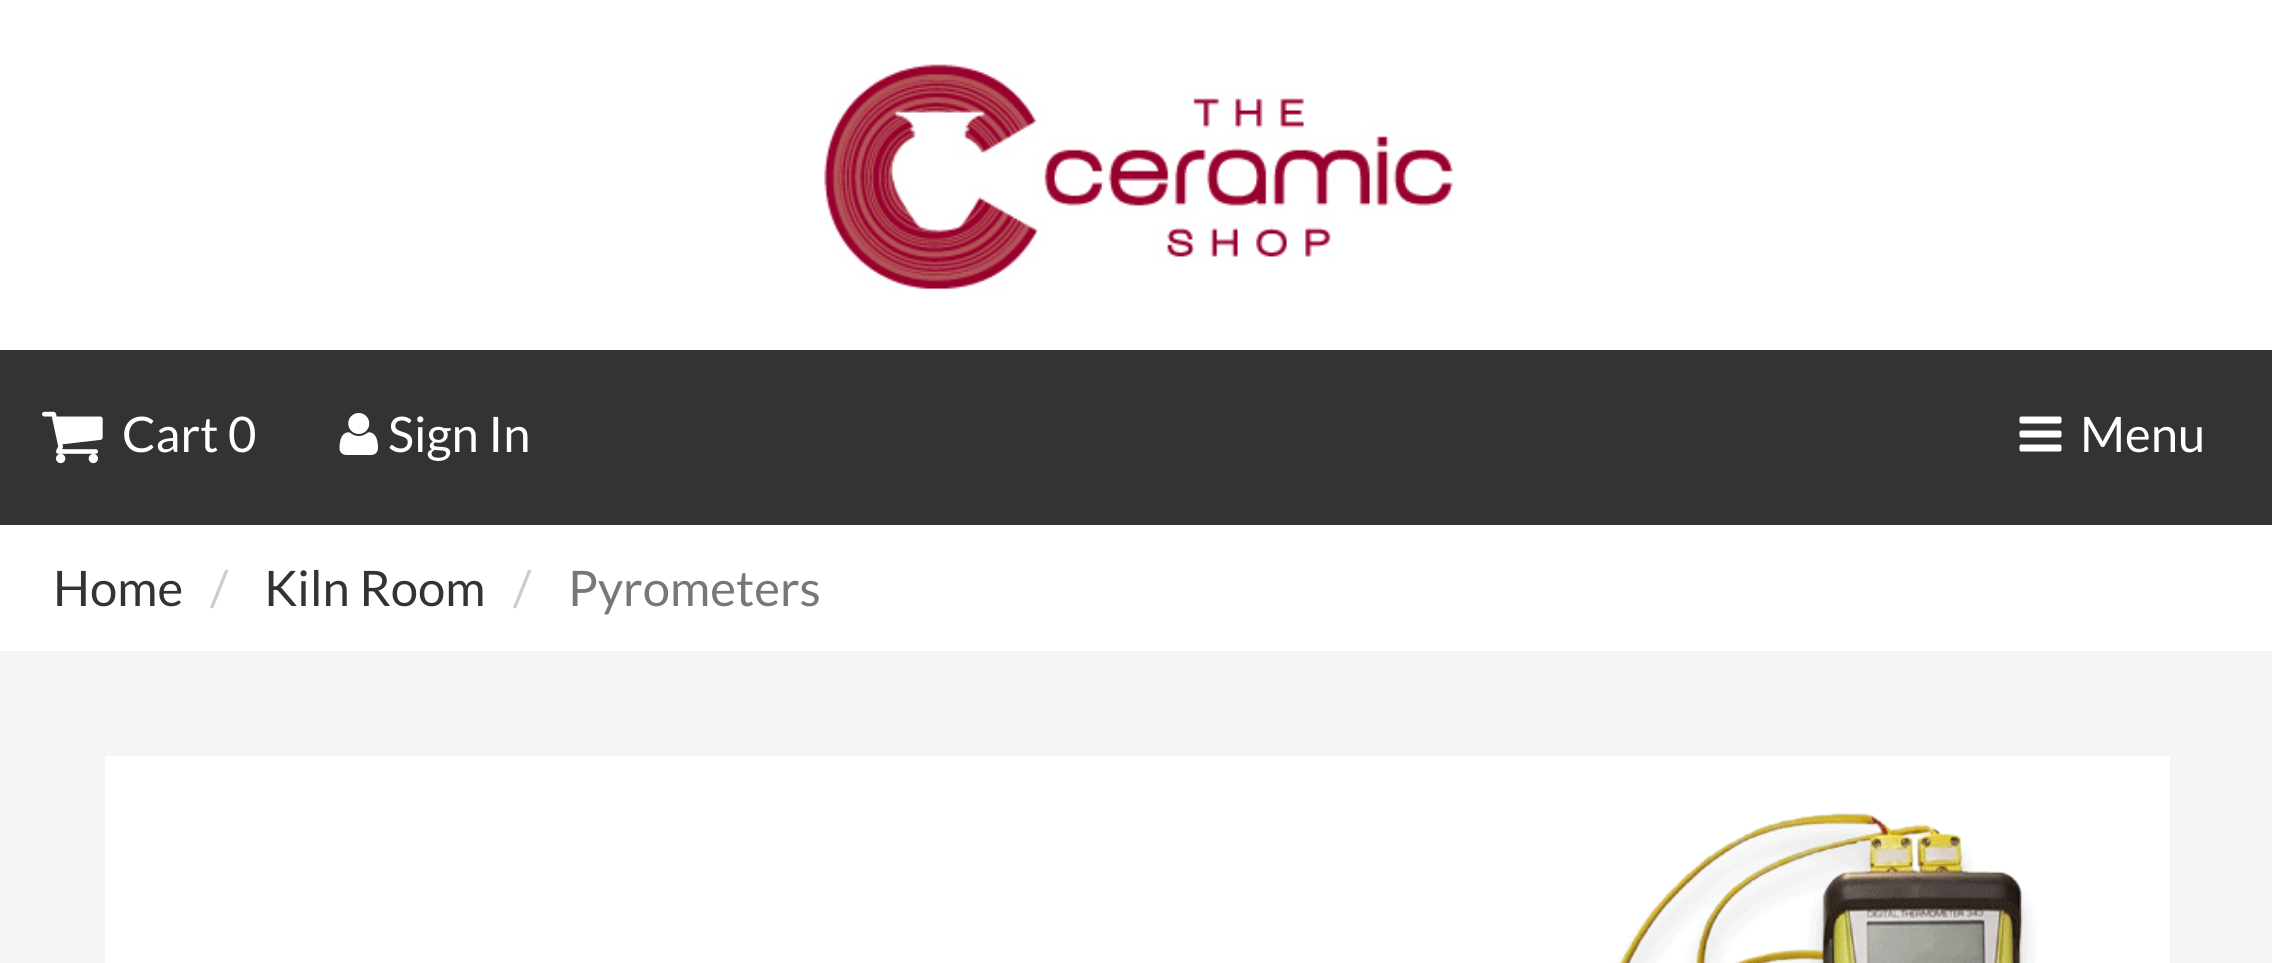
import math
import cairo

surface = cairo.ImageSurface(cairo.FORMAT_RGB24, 2272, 963)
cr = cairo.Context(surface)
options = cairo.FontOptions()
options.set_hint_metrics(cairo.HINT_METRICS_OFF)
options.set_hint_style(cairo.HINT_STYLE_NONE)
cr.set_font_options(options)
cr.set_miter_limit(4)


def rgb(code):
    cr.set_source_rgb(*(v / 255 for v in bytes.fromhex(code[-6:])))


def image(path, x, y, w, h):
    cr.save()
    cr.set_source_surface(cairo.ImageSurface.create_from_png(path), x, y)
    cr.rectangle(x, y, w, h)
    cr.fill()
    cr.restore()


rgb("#ffffff")
cr.paint()
image("img/1.png", 824, 64, 629, 226)
rgb("#333333")
cr.rectangle(0, 350, 2272, 175)
cr.fill()
image("img/2.png", 42, 411, 61, 53)
image("img/3.png", 339, 413, 39, 42)
image("img/4.png", 2019, 416, 43, 36)
rgb("#f5f5f5")
cr.rectangle(0, 651, 2272, 312)
cr.fill()
image("img/5.png", 105, 756, 2065, 207)
cr.select_font_face("Lato")
cr.set_font_size(49)
rgb("#ffffff")
for x, y, s in [
    (122, 452, "Cart 0"),
    (388, 452, "Sign In"),
    (2080, 452, "Menu"),
]:
    cr.move_to(x, y)
    cr.show_text(s)
rgb("#333333")
cr.move_to(53, 606)
cr.show_text("Home")
rgb("#cccccc")
cr.move_to(210, 606)
cr.show_text("/")
rgb("#333333")
cr.move_to(264, 606)
cr.show_text("Kiln Room")
rgb("#cccccc")
cr.move_to(513, 606)
cr.show_text("/")
rgb("#777777")
cr.move_to(568, 606)
cr.show_text("Pyrometers")
surface.write_to_png("page.png")
